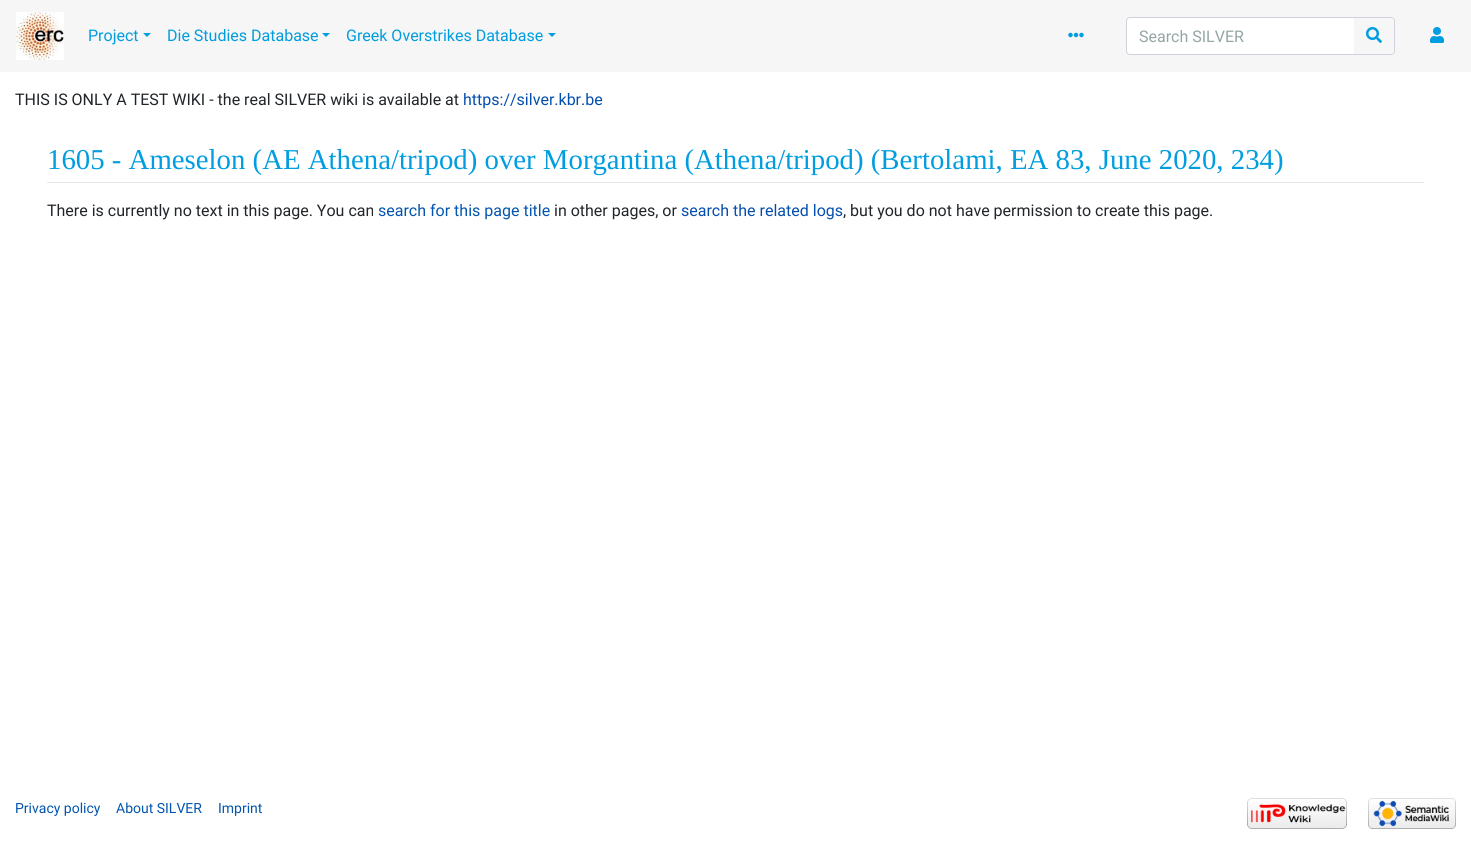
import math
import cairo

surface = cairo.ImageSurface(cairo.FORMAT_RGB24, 1471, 841)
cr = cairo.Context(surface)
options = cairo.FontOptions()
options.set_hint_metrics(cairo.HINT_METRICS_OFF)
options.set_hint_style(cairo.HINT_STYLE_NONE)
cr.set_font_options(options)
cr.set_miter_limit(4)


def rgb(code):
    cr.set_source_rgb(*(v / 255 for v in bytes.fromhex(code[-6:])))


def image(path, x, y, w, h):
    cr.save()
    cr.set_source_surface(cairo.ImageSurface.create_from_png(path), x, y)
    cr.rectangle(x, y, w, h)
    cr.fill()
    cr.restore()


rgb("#ffffff")
cr.paint()
rgb("#f6f6f6")
cr.rectangle(0, 0, 1471, 72)
cr.fill()
image("img/1.png", 16, 12, 48, 48)
rgb("#009de0")
cr.new_path()
cr.move_to(143, 33)
cr.line_to(151, 33)
cr.line_to(147, 37)
cr.close_path()
cr.fill()
cr.new_path()
cr.move_to(322, 33)
cr.line_to(330, 33)
cr.line_to(326, 37)
cr.close_path()
cr.fill()
cr.new_path()
cr.move_to(548, 33)
cr.line_to(556, 33)
cr.line_to(552, 37)
cr.close_path()
cr.fill()
image("img/2.png", 1068, 32, 16, 6)
rgb("#ffffff")
cr.new_path()
cr.move_to(1130, 17.5)
cr.line_to(1354.5, 17.5)
cr.line_to(1354.5, 54.5)
cr.line_to(1130, 54.5)
cr.curve_to(1128, 54.5, 1126.5, 53, 1126.5, 51)
cr.line_to(1126.5, 21)
cr.curve_to(1126.5, 19, 1128, 17.5, 1130, 17.5)
cr.close_path()
cr.fill_preserve()
rgb("#ced4da")
cr.set_line_width(1)
cr.stroke()
rgb("#f6f6f6")
cr.new_path()
cr.move_to(1354, 18)
cr.line_to(1391, 18)
cr.curve_to(1392.5, 18, 1394, 19.5, 1394, 21)
cr.line_to(1394, 51)
cr.curve_to(1394, 52.5, 1392.5, 54, 1391, 54)
cr.line_to(1354, 54)
cr.close_path()
cr.fill()
rgb("#ced4da")
cr.set_fill_rule(cairo.FILL_RULE_EVEN_ODD)
cr.new_path()
cr.move_to(1354, 17)
cr.line_to(1391, 17)
cr.curve_to(1393, 17, 1395, 19, 1395, 21)
cr.line_to(1395, 51)
cr.curve_to(1395, 53, 1393, 55, 1391, 55)
cr.line_to(1354, 55)
cr.close_path()
cr.move_to(1354, 18)
cr.line_to(1391, 18)
cr.curve_to(1393, 18, 1394, 19, 1394, 21)
cr.line_to(1394, 51)
cr.curve_to(1394, 53, 1393, 54, 1391, 54)
cr.line_to(1354, 54)
cr.close_path()
cr.fill()
image("img/3.png", 1366, 27, 16, 16)
image("img/4.png", 1430, 27, 14, 16)
rgb("#e6e6e6")
cr.rectangle(47, 182, 1377, 1)
cr.fill()
image("img/5.png", 1247, 798, 100, 31)
image("img/6.png", 1368, 798, 88, 31)
cr.select_font_face("Roboto")
cr.set_font_size(16)
rgb("#009de0")
for x, y, s in [
    (88, 41, "Project"),
    (167, 41, "Die Studies Database"),
    (346, 41, "Greek Overstrikes Database"),
]:
    cr.move_to(x, y)
    cr.show_text(s)
rgb("#95a5a6")
cr.move_to(1139, 42)
cr.show_text("Search SILVER")
rgb("#212529")
cr.move_to(15, 105)
cr.show_text("THIS IS ONLY A TEST WIKI - the real SILVER wiki is available at")
rgb("#044eae")
cr.move_to(463, 105)
cr.show_text("https://silver.kbr.be")
cr.select_font_face("Liberation Serif")
cr.set_font_size(28.8)
rgb("#009de0")
cr.move_to(47, 169)
cr.show_text("1605 - Ameselon (AE Athena/tripod) over Morgantina (Athena/tripod) (Bertolami, EA 83, June 2020, 234)")
cr.select_font_face("Roboto")
cr.set_font_size(16)
rgb("#212529")
cr.move_to(47, 216)
cr.show_text("There is currently no text in this page. You can")
rgb("#0355ad")
cr.move_to(378, 216)
cr.show_text("search for this page title")
rgb("#212529")
cr.move_to(554, 216)
cr.show_text("in other pages, or")
rgb("#044eae")
cr.move_to(681, 216)
cr.show_text("search the related logs")
rgb("#212529")
cr.move_to(843, 216)
cr.show_text(", but you do not have permission to create this page.")
cr.set_font_size(14)
rgb("#0355ad")
for x, y, s in [
    (15, 813, "Privacy policy"),
    (116, 813, "About SILVER"),
    (218, 813, "Imprint"),
]:
    cr.move_to(x, y)
    cr.show_text(s)
surface.write_to_png("page.png")
